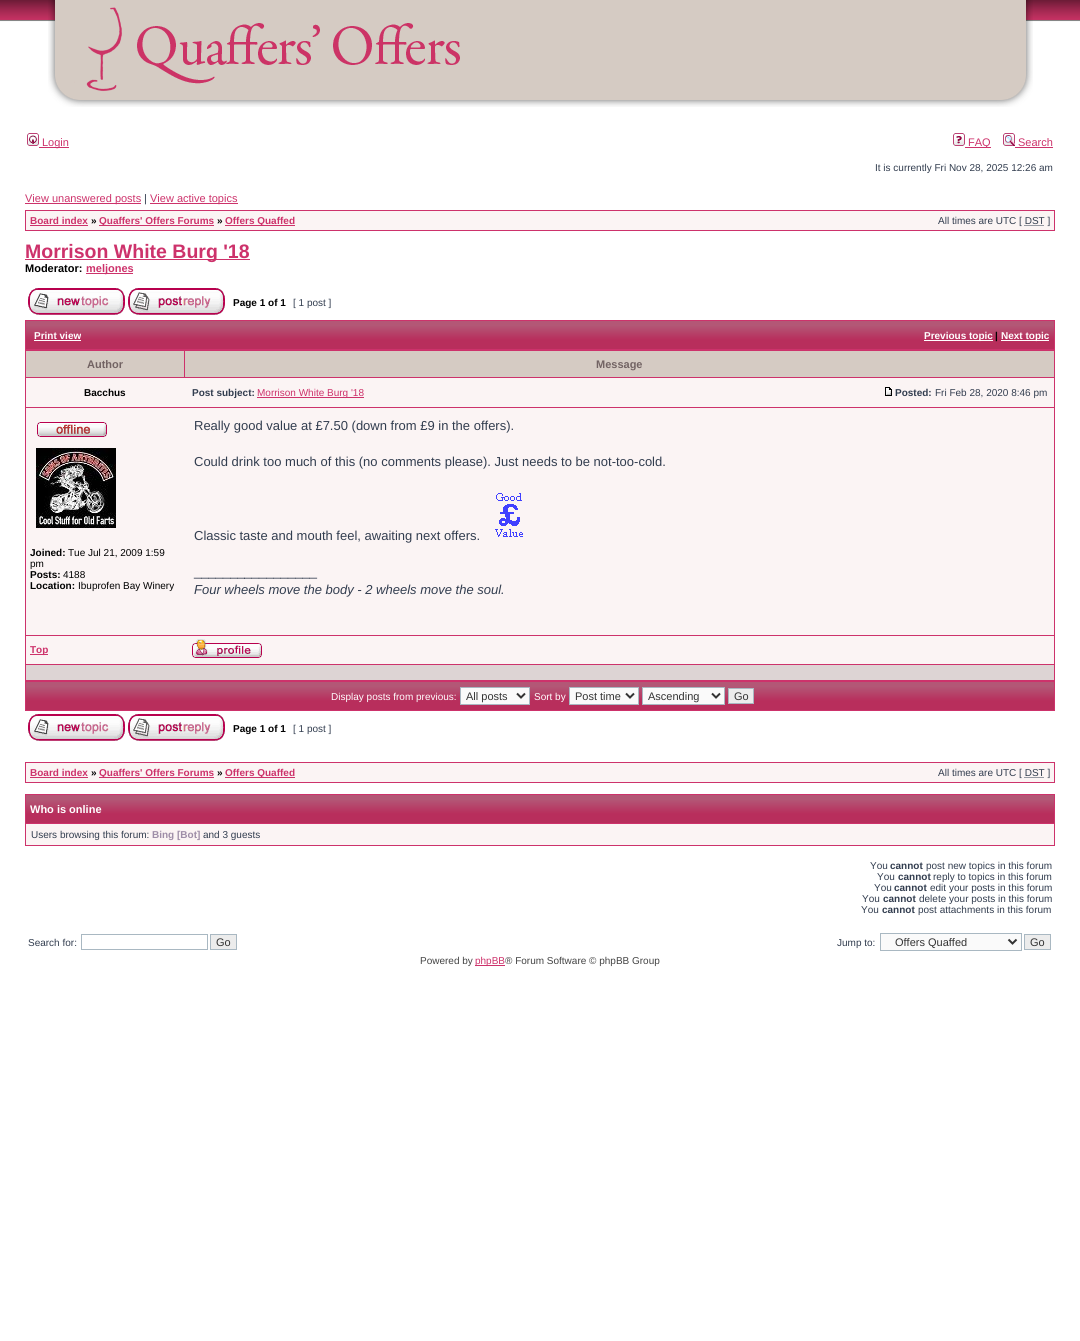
import math
import cairo

surface = cairo.ImageSurface(cairo.FORMAT_RGB24, 1080, 1341)
cr = cairo.Context(surface)
options = cairo.FontOptions()
options.set_hint_metrics(cairo.HINT_METRICS_OFF)
options.set_hint_style(cairo.HINT_STYLE_NONE)
cr.set_font_options(options)
cr.set_miter_limit(4)


def rgb(code):
    cr.set_source_rgb(*(v / 255 for v in bytes.fromhex(code[-6:])))


def image(path, x, y, w, h):
    cr.save()
    cr.set_source_surface(cairo.ImageSurface.create_from_png(path), x, y)
    cr.rectangle(x, y, w, h)
    cr.fill()
    cr.restore()


rgb("#ffffff")
cr.paint()
image("img/1.png", 0, 0, 1080, 22)
image("img/2.png", 48, 0, 985, 107)
image("img/3.png", 27, 133, 12, 13)
rgb("#cd326b")
cr.rectangle(39, 147, 30, 1)
cr.fill()
image("img/4.png", 953, 133, 12, 13)
cr.rectangle(965, 147, 26, 1)
cr.fill()
image("img/5.png", 1003, 133, 12, 13)
for x, y, w, h, color in [
    (1015, 147, 38, 1, "#cd326b"),
    (25, 203, 116, 1, "#cd326b"),
    (150, 203, 88, 1, "#cd326b"),
    (25, 210, 1030, 21, "#cd326b"),
    (26, 211, 1028, 19, "#fbf4f4"),
    (30, 225, 58, 1, "#cd326b"),
    (99, 225, 115, 1, "#cd326b"),
    (225, 225, 70, 1, "#cd326b"),
]:
    rgb(color)
    cr.rectangle(x, y, w, h)
    cr.fill()
cr.new_path()
cr.move_to(1024.5, 225.5)
cr.line_to(1044.5, 225.5)
rgb("#323d4f")
cr.set_line_width(1)
cr.set_dash([1, 1])
cr.stroke()
rgb("#cd326b")
cr.rectangle(25, 259, 225, 1)
cr.fill()
cr.rectangle(86, 273, 47, 1)
cr.fill()
image("img/6.png", 28, 288, 97, 27)
image("img/7.png", 128, 288, 97, 27)
cr.rectangle(25, 320, 1030, 391)
cr.fill()
gradient = cairo.LinearGradient(540, 349, 540, 321)
gradient.add_color_stop_rgba(0.33, 0.722, 0.18, 0.361, 1)
gradient.add_color_stop_rgba(0.84, 0.702, 0.341, 0.463, 1)
cr.set_source(gradient)
cr.rectangle(26, 321, 1028, 28)
cr.fill()
for x, y, w, h, color in [
    (34, 340, 47, 1, "#ffffff"),
    (924, 340, 69, 1, "#ffffff"),
    (1001, 340, 48, 1, "#ffffff"),
    (26, 351, 158, 26, "#d5cbc3"),
    (185, 351, 869, 26, "#d5cbc3"),
    (26, 378, 1028, 29, "#fbf4f4"),
    (257, 397, 107, 1, "#cd326b"),
]:
    rgb(color)
    cr.rectangle(x, y, w, h)
    cr.fill()
image("img/8.png", 885, 387, 7, 9)
rgb("#fbf4f4")
cr.rectangle(26, 408, 1028, 227)
cr.fill()
image("img/9.png", 37, 422, 70, 15)
image("img/10.png", 36, 448, 80, 80)
image("img/11.png", 495, 493, 28, 44)
cr.rectangle(26, 636, 1028, 28)
cr.fill()
rgb("#cd326b")
cr.rectangle(30, 654, 18, 1)
cr.fill()
image("img/12.png", 192, 639, 70, 19)
rgb("#ddd4d4")
cr.rectangle(26, 665, 1028, 15)
cr.fill()
gradient = cairo.LinearGradient(540, 710, 540, 682)
gradient.add_color_stop_rgba(0.33, 0.722, 0.18, 0.361, 1)
gradient.add_color_stop_rgba(0.84, 0.702, 0.341, 0.463, 1)
cr.set_source(gradient)
cr.rectangle(26, 682, 1028, 28)
cr.fill()
rgb("#fafafa")
cr.rectangle(460.5, 687.5, 69, 17)
cr.fill_preserve()
rgb("#a9b8c2")
cr.set_dash([])
cr.stroke()
cr.new_path()
cr.move_to(517, 693.5)
cr.line_to(521, 697.5)
cr.line_to(525, 693.5)
rgb("#333333")
cr.set_line_width(2)
cr.stroke()
rgb("#fafafa")
cr.rectangle(569.5, 687.5, 69, 17)
cr.fill_preserve()
rgb("#a9b8c2")
cr.set_line_width(1)
cr.stroke()
cr.new_path()
cr.move_to(626, 693.5)
cr.line_to(630, 697.5)
cr.line_to(634, 693.5)
rgb("#333333")
cr.set_line_width(2)
cr.stroke()
rgb("#fafafa")
cr.rectangle(642.5, 687.5, 82, 17)
cr.fill_preserve()
rgb("#a9b8c2")
cr.set_line_width(1)
cr.stroke()
cr.new_path()
cr.move_to(712, 693.5)
cr.line_to(716, 697.5)
cr.line_to(720, 693.5)
rgb("#333333")
cr.set_line_width(2)
cr.stroke()
rgb("#ececec")
cr.rectangle(728.5, 688.5, 25, 15)
cr.fill_preserve()
rgb("#a9b8c2")
cr.set_line_width(1)
cr.stroke()
image("img/6.png", 28, 714, 97, 27)
image("img/7.png", 128, 714, 97, 27)
for x, y, w, h, color in [
    (25, 762, 1030, 21, "#cd326b"),
    (26, 763, 1028, 19, "#fbf4f4"),
    (30, 777, 58, 1, "#cd326b"),
    (99, 777, 115, 1, "#cd326b"),
    (225, 777, 70, 1, "#cd326b"),
]:
    rgb(color)
    cr.rectangle(x, y, w, h)
    cr.fill()
cr.new_path()
cr.move_to(1024.5, 777.5)
cr.line_to(1044.5, 777.5)
rgb("#323d4f")
cr.set_dash([1, 1])
cr.stroke()
rgb("#cd326b")
cr.rectangle(25, 794, 1030, 52)
cr.fill()
gradient = cairo.LinearGradient(540, 823, 540, 795)
gradient.add_color_stop_rgba(0.33, 0.722, 0.18, 0.361, 1)
gradient.add_color_stop_rgba(0.84, 0.702, 0.341, 0.463, 1)
cr.set_source(gradient)
cr.rectangle(26, 795, 1028, 28)
cr.fill()
rgb("#fbf4f4")
cr.rectangle(26, 824, 1028, 21)
cr.fill()
cr.rectangle(81.5, 934.5, 126, 15)
rgb("#a9b8c2")
cr.set_dash([])
cr.stroke()
rgb("#ececec")
cr.rectangle(210.5, 934.5, 26, 15)
cr.fill_preserve()
rgb("#a9b8c2")
cr.stroke()
rgb("#fafafa")
cr.rectangle(880.5, 933.5, 141, 17)
cr.fill_preserve()
rgb("#a9b8c2")
cr.stroke()
cr.new_path()
cr.move_to(1008.5, 939.5)
cr.line_to(1012.5, 943.5)
cr.line_to(1016.5, 939.5)
rgb("#333333")
cr.set_line_width(2)
cr.stroke()
rgb("#ececec")
cr.rectangle(1024.5, 934.5, 26, 15)
cr.fill_preserve()
rgb("#a9b8c2")
cr.set_line_width(1)
cr.stroke()
rgb("#cd326b")
cr.rectangle(475, 965, 30, 1)
cr.fill()
cr.select_font_face("Liberation Sans")
cr.set_font_size(11)
for x, y, s in [
    (42, 146, "Login"),
    (968, 146, "FAQ"),
    (1018, 146, "Search"),
]:
    cr.move_to(x, y)
    cr.show_text(s)
cr.set_font_size(10)
rgb("#323d4f")
cr.move_to(875, 171)
cr.show_text("It is currently Fri Nov 28, 2025 12:26 am")
cr.set_font_size(11)
rgb("#cd326b")
cr.move_to(25, 202)
cr.show_text("View unanswered posts")
rgb("#323d4f")
cr.move_to(144, 202)
cr.show_text("|")
rgb("#cd326b")
cr.move_to(150, 202)
cr.show_text("View active topics")
cr.select_font_face("Liberation Sans", cairo.FONT_SLANT_NORMAL, cairo.FONT_WEIGHT_BOLD)
cr.set_font_size(10)
cr.move_to(30, 224)
cr.show_text("Board index")
rgb("#000000")
cr.move_to(91, 224)
cr.show_text("»")
rgb("#cd326b")
cr.move_to(99, 224)
cr.show_text("Quaffers' Offers Forums")
rgb("#000000")
cr.move_to(217, 224)
cr.show_text("»")
rgb("#cd326b")
cr.move_to(225, 224)
cr.show_text("Offers Quaffed")
cr.select_font_face("Liberation Sans")
rgb("#323d4f")
cr.move_to(938, 224)
cr.show_text("All times are UTC [ DST ]")
cr.select_font_face("Liberation Sans", cairo.FONT_SLANT_NORMAL, cairo.FONT_WEIGHT_BOLD)
cr.set_font_size(19.5)
rgb("#cd326b")
cr.move_to(25, 258)
cr.show_text("Morrison White Burg '18")
cr.set_font_size(11)
rgb("#000000")
cr.move_to(25, 272)
cr.show_text("Moderator:")
rgb("#cd326b")
cr.move_to(86, 272)
cr.show_text("meljones")
cr.set_font_size(10)
rgb("#000000")
cr.move_to(233, 306)
cr.show_text("Page 1 of 1")
cr.select_font_face("Liberation Sans")
rgb("#323d4f")
cr.move_to(293, 306)
cr.show_text("[ 1 post ]")
cr.select_font_face("Liberation Sans", cairo.FONT_SLANT_NORMAL, cairo.FONT_WEIGHT_BOLD)
rgb("#ffffff")
cr.move_to(34, 339)
cr.show_text("Print view")
cr.move_to(924, 339)
cr.show_text("Previous topic")
rgb("#000000")
cr.move_to(995, 339)
cr.show_text("|")
rgb("#ffffff")
cr.move_to(1001, 339)
cr.show_text("Next topic")
cr.set_font_size(11)
rgb("#726363")
cr.move_to(87, 368)
cr.show_text("Author")
cr.move_to(596, 368)
cr.show_text("Message")
cr.set_font_size(10)
rgb("#000000")
cr.move_to(84, 396)
cr.show_text("Bacchus")
rgb("#323d4f")
cr.move_to(192, 396)
cr.show_text("Post subject:")
cr.select_font_face("Liberation Sans")
rgb("#cd326b")
cr.move_to(257, 396)
cr.show_text("Morrison White Burg '18")
cr.select_font_face("Liberation Sans", cairo.FONT_SLANT_NORMAL, cairo.FONT_WEIGHT_BOLD)
rgb("#323d4f")
cr.move_to(895, 396)
cr.show_text("Posted:")
cr.select_font_face("Liberation Sans")
cr.move_to(935, 396)
cr.show_text("Fri Feb 28, 2020 8:46 pm")
cr.select_font_face("Liberation Sans", cairo.FONT_SLANT_NORMAL, cairo.FONT_WEIGHT_BOLD)
rgb("#000000")
cr.move_to(30, 556)
cr.show_text("Joined:")
cr.select_font_face("Liberation Sans")
cr.move_to(68, 556)
cr.show_text("Tue Jul 21, 2009 1:59")
cr.move_to(30, 567)
cr.show_text("pm")
cr.select_font_face("Liberation Sans", cairo.FONT_SLANT_NORMAL, cairo.FONT_WEIGHT_BOLD)
cr.move_to(30, 578)
cr.show_text("Posts:")
cr.select_font_face("Liberation Sans")
cr.move_to(63, 578)
cr.show_text("4188")
cr.select_font_face("Liberation Sans", cairo.FONT_SLANT_NORMAL, cairo.FONT_WEIGHT_BOLD)
cr.move_to(30, 589)
cr.show_text("Location:")
cr.select_font_face("Liberation Sans")
cr.move_to(78, 589)
cr.show_text("Ibuprofen Bay Winery")
cr.set_font_size(13)
rgb("#323d4f")
for x, y, s in [
    (194, 430, "Really good value at £7.50 (down from £9 in the offers)."),
    (194, 466, "Could drink too much of this (no comments please). Just needs to be not-too-cold."),
    (194, 540, "Classic taste and mouth feel, awaiting next offers."),
    (194, 576, "_________________"),
]:
    cr.move_to(x, y)
    cr.show_text(s)
cr.select_font_face("Liberation Sans", cairo.FONT_SLANT_ITALIC)
cr.move_to(194, 594)
cr.show_text("Four wheels move the body - 2 wheels move the soul.")
cr.select_font_face("Liberation Sans", cairo.FONT_SLANT_NORMAL, cairo.FONT_WEIGHT_BOLD)
cr.set_font_size(10)
rgb("#cd326b")
cr.move_to(30, 653)
cr.show_text("Top")
cr.select_font_face("Liberation Sans")
rgb("#ffffff")
cr.move_to(331, 700)
cr.show_text("Display posts from previous:")
cr.set_font_size(11)
rgb("#333333")
cr.move_to(466, 700)
cr.show_text("All posts")
cr.set_font_size(10)
rgb("#ffffff")
cr.move_to(534, 700)
cr.show_text("Sort by")
cr.set_font_size(11)
rgb("#333333")
for x, y, s in [
    (575, 700, "Post time"),
    (648, 700, "Ascending"),
    (734, 700, "Go"),
]:
    cr.move_to(x, y)
    cr.show_text(s)
cr.select_font_face("Liberation Sans", cairo.FONT_SLANT_NORMAL, cairo.FONT_WEIGHT_BOLD)
cr.set_font_size(10)
rgb("#000000")
cr.move_to(233, 732)
cr.show_text("Page 1 of 1")
cr.select_font_face("Liberation Sans")
rgb("#323d4f")
cr.move_to(293, 732)
cr.show_text("[ 1 post ]")
cr.select_font_face("Liberation Sans", cairo.FONT_SLANT_NORMAL, cairo.FONT_WEIGHT_BOLD)
rgb("#cd326b")
cr.move_to(30, 776)
cr.show_text("Board index")
rgb("#000000")
cr.move_to(91, 776)
cr.show_text("»")
rgb("#cd326b")
cr.move_to(99, 776)
cr.show_text("Quaffers' Offers Forums")
rgb("#000000")
cr.move_to(217, 776)
cr.show_text("»")
rgb("#cd326b")
cr.move_to(225, 776)
cr.show_text("Offers Quaffed")
cr.select_font_face("Liberation Sans")
rgb("#323d4f")
cr.move_to(938, 776)
cr.show_text("All times are UTC [ DST ]")
cr.select_font_face("Liberation Sans", cairo.FONT_SLANT_NORMAL, cairo.FONT_WEIGHT_BOLD)
cr.set_font_size(11)
rgb("#ffffff")
cr.move_to(30, 813)
cr.show_text("Who is online")
cr.select_font_face("Liberation Sans")
cr.set_font_size(10)
rgb("#323d4f")
cr.move_to(31, 838)
cr.show_text("Users browsing this forum:")
cr.select_font_face("Liberation Sans", cairo.FONT_SLANT_NORMAL, cairo.FONT_WEIGHT_BOLD)
rgb("#9e8da7")
cr.move_to(152, 838)
cr.show_text("Bing [Bot]")
cr.select_font_face("Liberation Sans")
rgb("#323d4f")
cr.move_to(203, 838)
cr.show_text("and 3 guests")
cr.move_to(870, 869)
cr.show_text("You")
cr.select_font_face("Liberation Sans", cairo.FONT_SLANT_NORMAL, cairo.FONT_WEIGHT_BOLD)
cr.move_to(890, 869)
cr.show_text("cannot")
cr.select_font_face("Liberation Sans")
cr.move_to(926, 869)
cr.show_text("post new topics in this forum")
cr.move_to(877, 880)
cr.show_text("You")
cr.select_font_face("Liberation Sans", cairo.FONT_SLANT_NORMAL, cairo.FONT_WEIGHT_BOLD)
cr.move_to(898, 880)
cr.show_text("cannot")
cr.select_font_face("Liberation Sans")
cr.move_to(933, 880)
cr.show_text("reply to topics in this forum")
cr.move_to(874, 891)
cr.show_text("You")
cr.select_font_face("Liberation Sans", cairo.FONT_SLANT_NORMAL, cairo.FONT_WEIGHT_BOLD)
cr.move_to(894, 891)
cr.show_text("cannot")
cr.select_font_face("Liberation Sans")
cr.move_to(930, 891)
cr.show_text("edit your posts in this forum")
cr.move_to(862, 902)
cr.show_text("You")
cr.select_font_face("Liberation Sans", cairo.FONT_SLANT_NORMAL, cairo.FONT_WEIGHT_BOLD)
cr.move_to(883, 902)
cr.show_text("cannot")
cr.select_font_face("Liberation Sans")
cr.move_to(919, 902)
cr.show_text("delete your posts in this forum")
cr.move_to(861, 913)
cr.show_text("You")
cr.select_font_face("Liberation Sans", cairo.FONT_SLANT_NORMAL, cairo.FONT_WEIGHT_BOLD)
cr.move_to(882, 913)
cr.show_text("cannot")
cr.select_font_face("Liberation Sans")
cr.move_to(918, 913)
cr.show_text("post attachments in this forum")
cr.move_to(28, 946)
cr.show_text("Search for:")
cr.set_font_size(11)
rgb("#333333")
cr.move_to(216, 946)
cr.show_text("Go")
cr.set_font_size(10)
rgb("#323d4f")
cr.move_to(837, 946)
cr.show_text("Jump to:")
cr.set_font_size(11)
rgb("#333333")
cr.move_to(895, 946)
cr.show_text("Offers Quaffed")
cr.move_to(1030, 946)
cr.show_text("Go")
cr.set_font_size(10)
rgb("#444444")
cr.move_to(420, 964)
cr.show_text("Powered by")
rgb("#cd326b")
cr.move_to(475, 964)
cr.show_text("phpBB")
rgb("#444444")
cr.move_to(505, 964)
cr.show_text("® Forum Software © phpBB Group")
surface.write_to_png("page.png")
